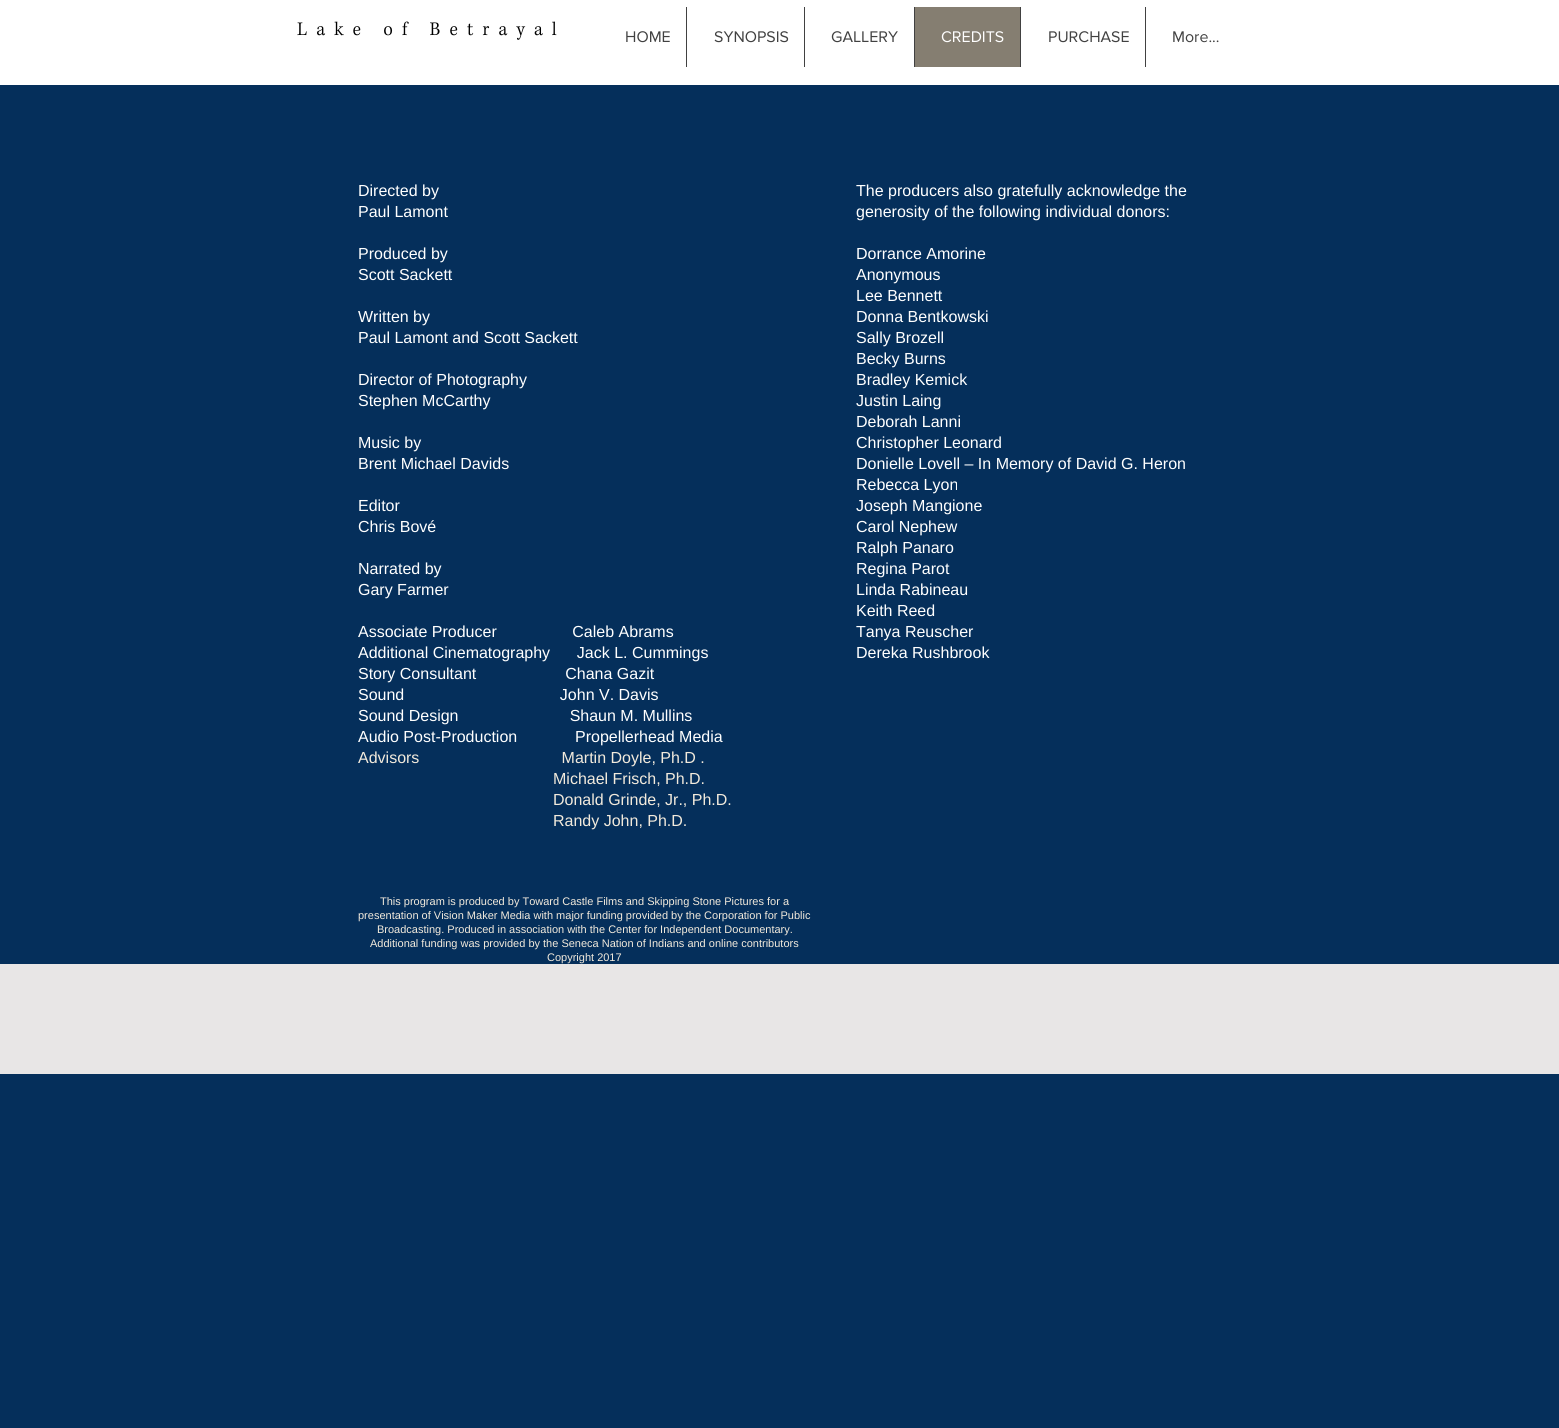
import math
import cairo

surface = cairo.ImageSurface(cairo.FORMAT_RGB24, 1559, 1428)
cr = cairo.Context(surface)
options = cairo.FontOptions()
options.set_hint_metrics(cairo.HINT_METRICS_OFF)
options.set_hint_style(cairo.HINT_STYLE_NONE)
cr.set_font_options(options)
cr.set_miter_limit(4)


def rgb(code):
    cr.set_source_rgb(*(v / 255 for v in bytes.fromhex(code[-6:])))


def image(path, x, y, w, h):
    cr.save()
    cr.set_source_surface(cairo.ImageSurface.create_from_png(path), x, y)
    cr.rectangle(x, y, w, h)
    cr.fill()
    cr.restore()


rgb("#052f5b")
cr.paint()
rgb("#ffffff")
cr.rectangle(0, 0, 1559, 85)
cr.fill()
image("img/1.png", 297, 21, 260, 19)
for x, y, w, h, color in [
    (686, 7, 1, 60, "#414141"),
    (804, 7, 1, 60, "#414141"),
    (915, 7, 105, 60, "#857e71"),
    (914, 7, 1, 60, "#414141"),
    (1020, 7, 1, 60, "#414141"),
    (1145, 7, 1, 60, "#414141"),
    (0, 964, 1559, 110, "#e8e6e6"),
]:
    rgb(color)
    cr.rectangle(x, y, w, h)
    cr.fill()
cr.select_font_face("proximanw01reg")
cr.set_font_size(16)
rgb("#414141")
for x, y, s in [
    (625, 42, "HOME"),
    (714, 42, "SYNOPSIS"),
    (831, 42, "GALLERY"),
]:
    cr.move_to(x, y)
    cr.show_text(s)
rgb("#ffffff")
cr.move_to(941, 42)
cr.show_text("CREDITS")
rgb("#414141")
cr.move_to(1048, 42)
cr.show_text("PURCHASE")
cr.move_to(1172, 42)
cr.show_text("More...")
cr.select_font_face("Liberation Sans")
rgb("#ffffff")
for x, y, s in [
    (358, 196, "Directed by"),
    (358, 217, "Paul Lamont"),
    (358, 259, "Produced by"),
    (358, 280, "Scott Sackett"),
    (358, 322, "Written by"),
    (358, 343, "Paul Lamont and Scott Sackett"),
    (358, 385, "Director of Photography"),
    (358, 406, "Stephen McCarthy"),
    (358, 448, "Music by"),
    (358, 469, "Brent Michael Davids"),
    (358, 511, "Editor"),
    (358, 532, "Chris Bové"),
    (358, 574, "Narrated by"),
    (358, 595, "Gary Farmer"),
    (358, 637, "Associate Producer                 Caleb Abrams"),
    (358, 658, "Additional Cinematography      Jack L. Cummings"),
    (358, 679, "Story Consultant                    Chana Gazit"),
    (358, 700, "Sound                                   John V. Davis"),
    (358, 721, "Sound Design                         Shaun M. Mullins"),
    (358, 742, "Audio Post-Production             Propellerhead Media"),
]:
    cr.move_to(x, y)
    cr.show_text(s)
rgb("#f2eadc")
for x, y, s in [
    (358, 763, "Advisors                                Martin Doyle, Ph.D ."),
    (553, 784, "Michael Frisch, Ph.D."),
    (553, 805, "Donald Grinde, Jr., Ph.D."),
    (553, 826, "Randy John, Ph.D."),
]:
    cr.move_to(x, y)
    cr.show_text(s)
cr.set_font_size(11)
for x, y, s in [
    (380, 905, "This program is produced by Toward Castle Films and Skipping Stone Pictures for a"),
    (358, 919, "presentation of Vision Maker Media with major funding provided by the Corporation for Public"),
    (377, 933, "Broadcasting. Produced in association with the Center for Independent Documentary."),
    (370, 947, "Additional funding was provided by the Seneca Nation of Indians and online contributors"),
    (547, 961, "Copyright 2017"),
]:
    cr.move_to(x, y)
    cr.show_text(s)
cr.set_font_size(16)
rgb("#ffffff")
for x, y, s in [
    (856, 196, "The producers also gratefully acknowledge the"),
    (856, 217, "generosity of the following individual donors:"),
    (856, 259, "Dorrance Amorine"),
    (856, 280, "Anonymous"),
    (856, 301, "Lee Bennett"),
    (856, 322, "Donna Bentkowski"),
    (856, 343, "Sally Brozell"),
    (856, 364, "Becky Burns"),
    (856, 385, "Bradley Kemick"),
    (856, 406, "Justin Laing"),
    (856, 427, "Deborah Lanni"),
    (856, 448, "Christopher Leonard"),
    (856, 469, "Donielle Lovell – In Memory of David G. Heron"),
    (856, 490, "Rebecca Lyon"),
    (856, 511, "Joseph Mangione"),
    (856, 532, "Carol Nephew"),
    (856, 553, "Ralph Panaro"),
    (856, 574, "Regina Parot"),
    (856, 595, "Linda Rabineau"),
    (856, 616, "Keith Reed"),
    (856, 637, "Tanya Reuscher"),
    (856, 658, "Dereka Rushbrook"),
]:
    cr.move_to(x, y)
    cr.show_text(s)
surface.write_to_png("page.png")
